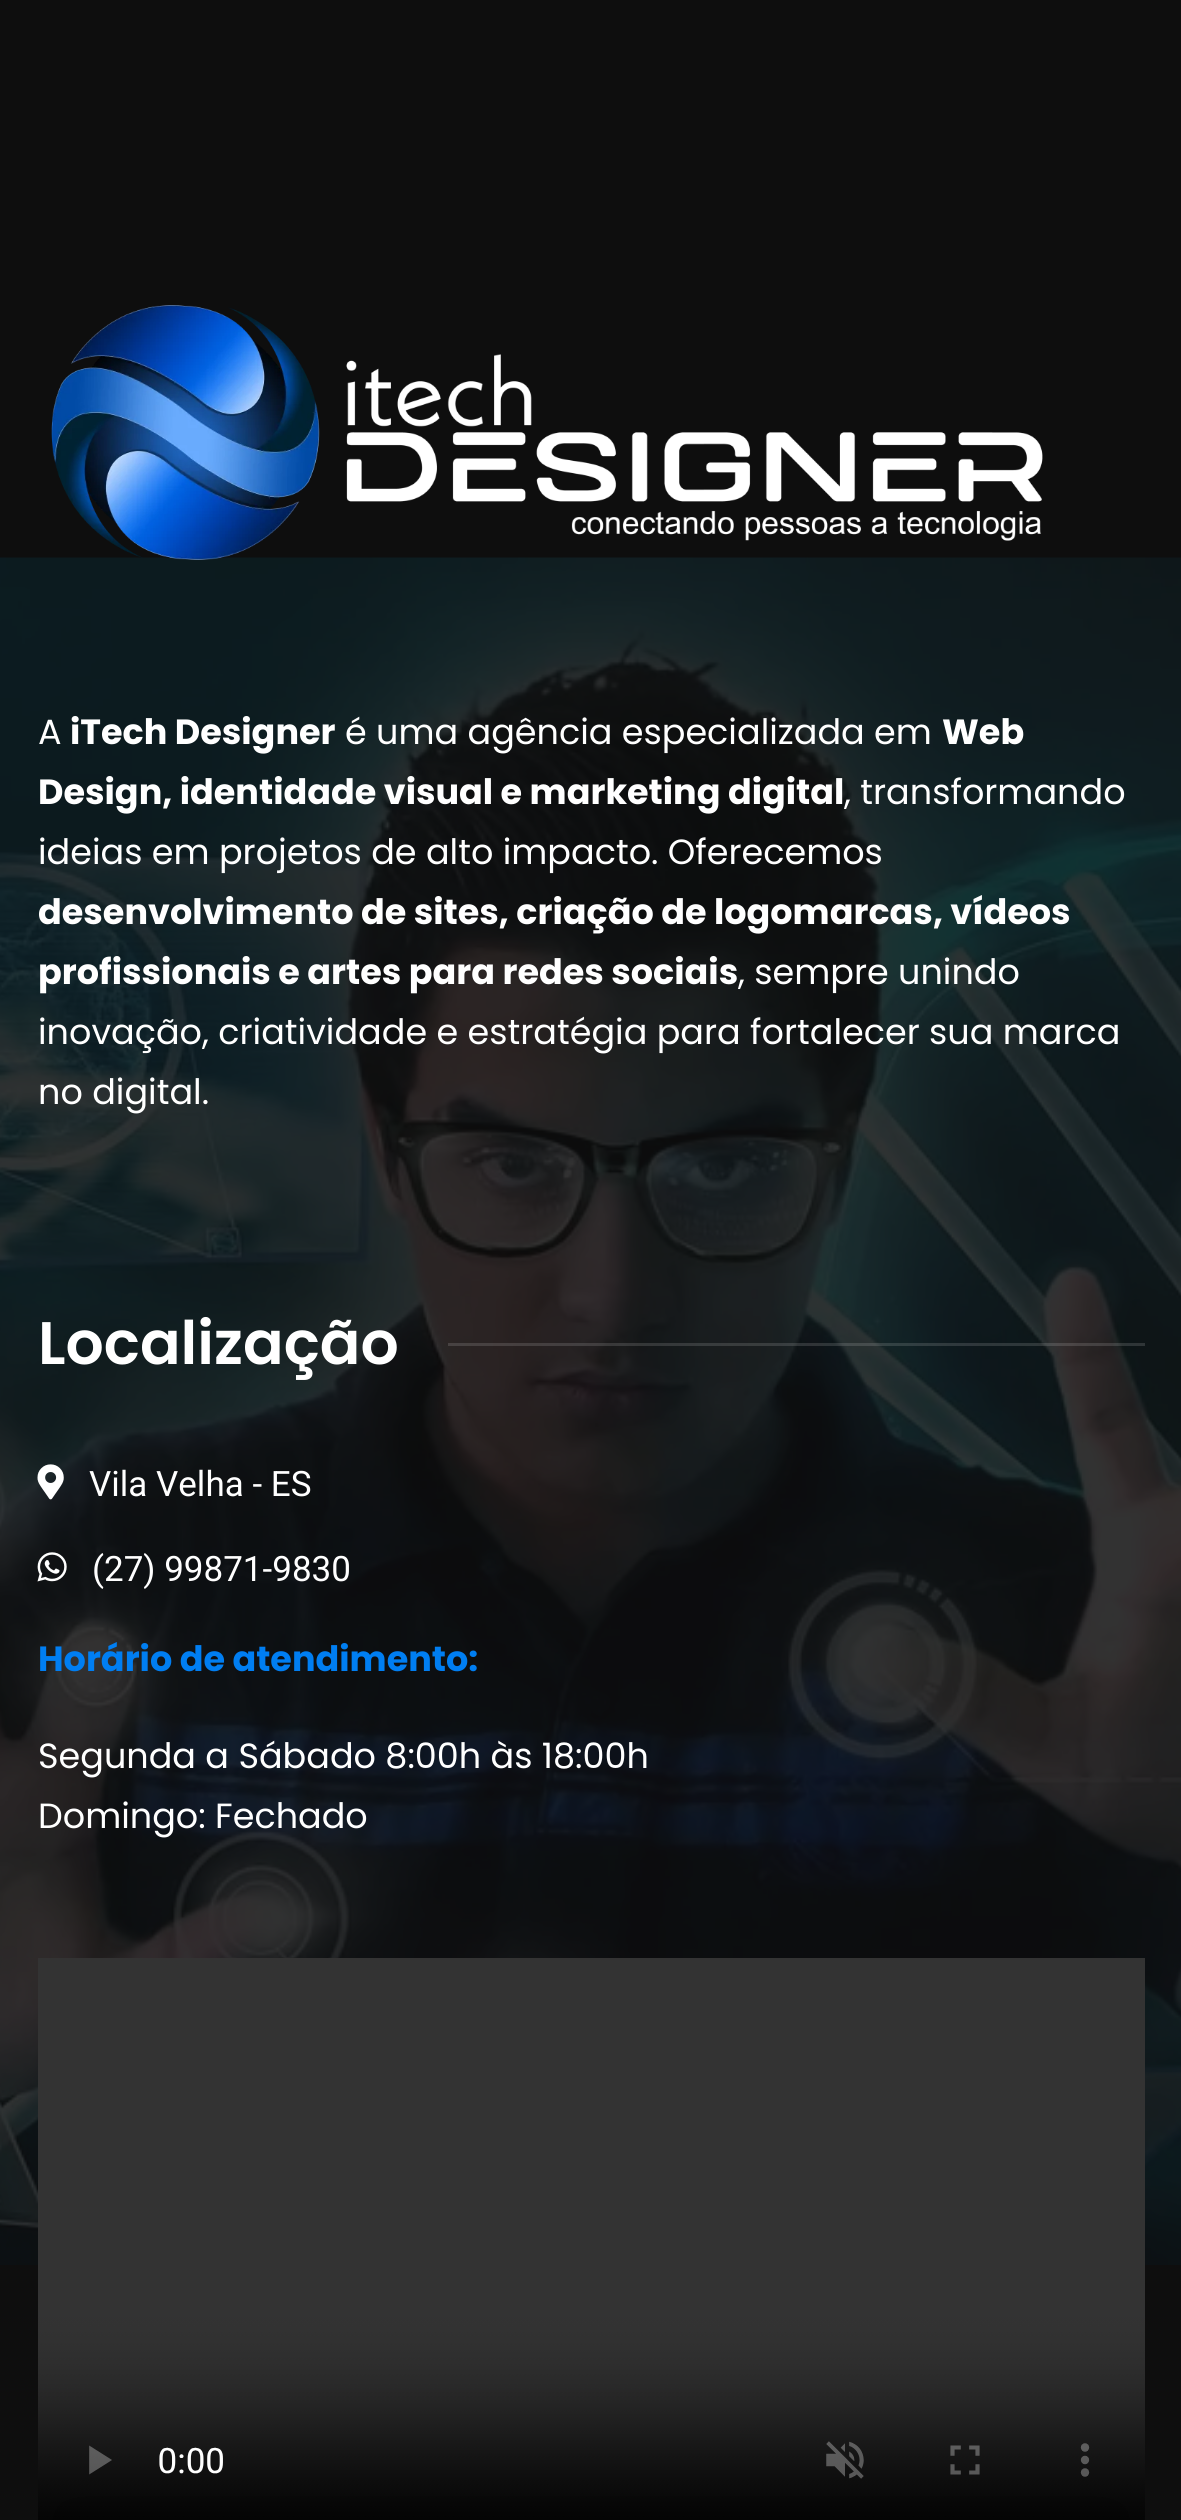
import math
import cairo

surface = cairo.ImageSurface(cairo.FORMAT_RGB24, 1181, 2520)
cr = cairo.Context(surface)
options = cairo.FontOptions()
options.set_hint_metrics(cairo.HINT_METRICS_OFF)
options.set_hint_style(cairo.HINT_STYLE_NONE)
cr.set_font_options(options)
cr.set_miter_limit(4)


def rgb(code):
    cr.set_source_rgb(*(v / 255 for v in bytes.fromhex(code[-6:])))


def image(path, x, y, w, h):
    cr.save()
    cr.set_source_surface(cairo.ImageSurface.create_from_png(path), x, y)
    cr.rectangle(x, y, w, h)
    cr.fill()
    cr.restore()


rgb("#0e0e0e")
cr.paint()
image("img/1.png", 0, 557, 1181, 1708)
image("img/2.png", 51, 305, 992, 255)
cr.set_source_rgba(0.914, 0.918, 0.933, 0.15)
cr.rectangle(448, 1343, 697, 3)
cr.fill()
image("img/3.png", 37, 1464, 27, 36)
image("img/4.png", 37, 1552, 30, 30)
image("img/5.png", 38, 1958, 1107, 562)
cr.select_font_face("Poppins")
cr.set_font_size(35)
rgb("#ffffff")
cr.move_to(38, 744)
cr.show_text("A")
cr.select_font_face("Poppins", cairo.FONT_SLANT_NORMAL, cairo.FONT_WEIGHT_BOLD)
cr.move_to(70, 744)
cr.show_text("iTech Designer")
cr.select_font_face("Poppins")
cr.move_to(345, 744)
cr.show_text("é uma agência especializada em")
cr.select_font_face("Poppins", cairo.FONT_SLANT_NORMAL, cairo.FONT_WEIGHT_BOLD)
cr.move_to(942, 744)
cr.show_text("Web")
cr.move_to(38, 804)
cr.show_text("Design, identidade visual e marketing digital")
cr.select_font_face("Poppins")
cr.move_to(844, 804)
cr.show_text(", transformando")
cr.move_to(38, 864)
cr.show_text("ideias em projetos de alto impacto. Oferecemos")
cr.select_font_face("Poppins", cairo.FONT_SLANT_NORMAL, cairo.FONT_WEIGHT_BOLD)
cr.move_to(38, 924)
cr.show_text("desenvolvimento de sites, criação de logomarcas, vídeos")
cr.move_to(38, 984)
cr.show_text("profissionais e artes para redes sociais")
cr.select_font_face("Poppins")
for x, y, s in [
    (738, 984, ", sempre unindo"),
    (38, 1044, "inovação, criatividade e estratégia para fortalecer sua marca"),
    (38, 1104, "no digital."),
]:
    cr.move_to(x, y)
    cr.show_text(s)
cr.select_font_face("Poppins SemiBold")
cr.set_font_size(60)
cr.move_to(38, 1364)
cr.show_text("Localização")
cr.select_font_face("Roboto")
cr.set_font_size(35)
cr.move_to(89, 1496)
cr.show_text("Vila Velha - ES")
cr.move_to(92, 1581)
cr.show_text("(27) 99871-9830")
cr.select_font_face("Poppins", cairo.FONT_SLANT_NORMAL, cairo.FONT_WEIGHT_BOLD)
rgb("#007ef2")
cr.move_to(38, 1671)
cr.show_text("Horário de atendimento:")
cr.select_font_face("Poppins")
rgb("#ffffff")
cr.move_to(38, 1768)
cr.show_text("Segunda a Sábado 8:00h às 18:00h")
cr.move_to(38, 1828)
cr.show_text("Domingo: Fechado")
surface.write_to_png("page.png")
